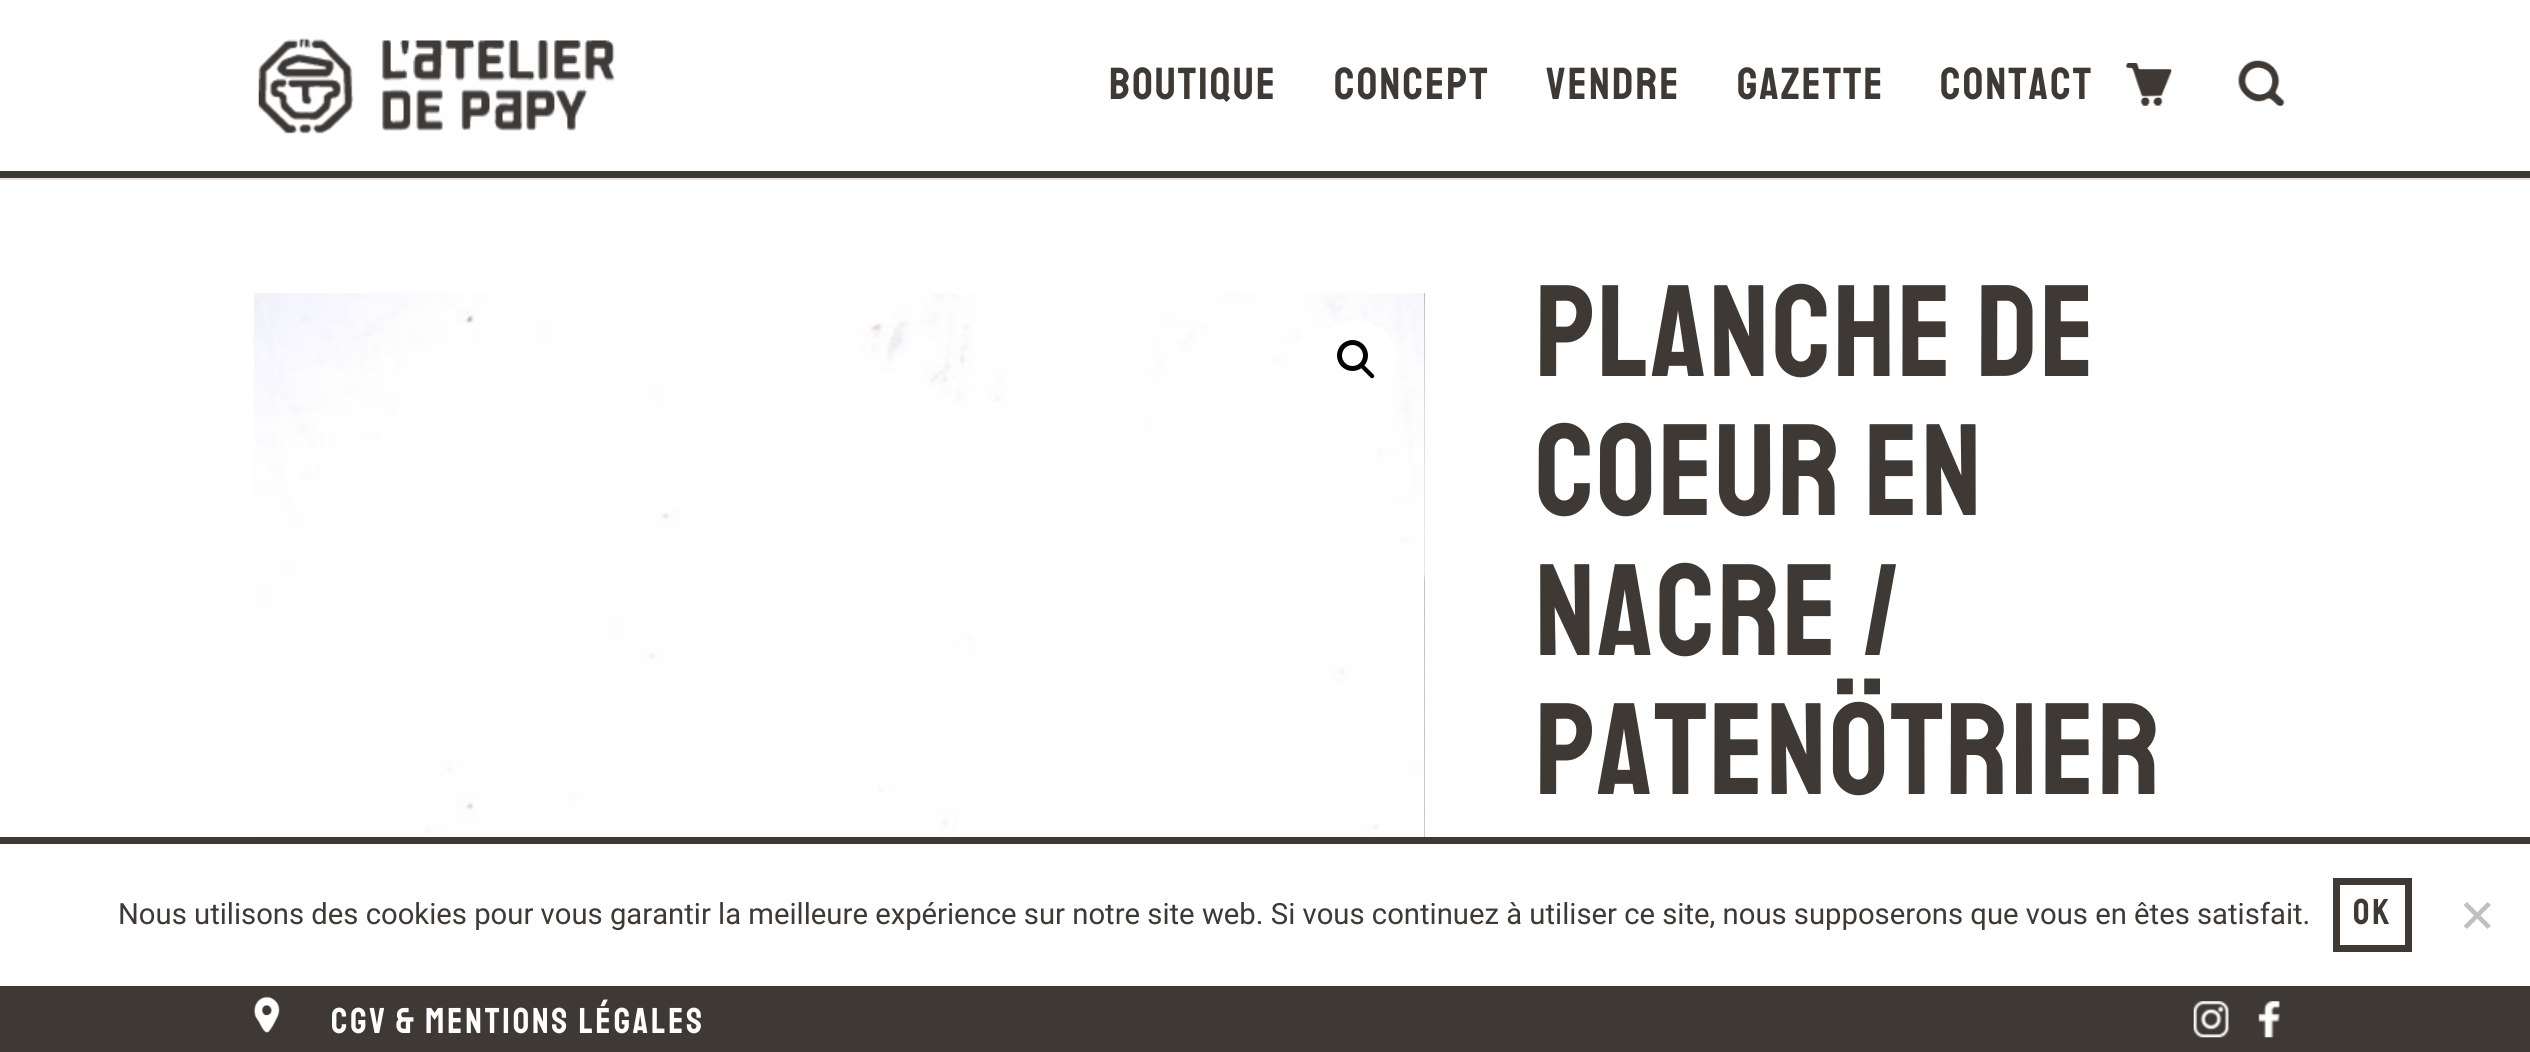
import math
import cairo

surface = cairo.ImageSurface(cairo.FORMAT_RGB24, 2530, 1052)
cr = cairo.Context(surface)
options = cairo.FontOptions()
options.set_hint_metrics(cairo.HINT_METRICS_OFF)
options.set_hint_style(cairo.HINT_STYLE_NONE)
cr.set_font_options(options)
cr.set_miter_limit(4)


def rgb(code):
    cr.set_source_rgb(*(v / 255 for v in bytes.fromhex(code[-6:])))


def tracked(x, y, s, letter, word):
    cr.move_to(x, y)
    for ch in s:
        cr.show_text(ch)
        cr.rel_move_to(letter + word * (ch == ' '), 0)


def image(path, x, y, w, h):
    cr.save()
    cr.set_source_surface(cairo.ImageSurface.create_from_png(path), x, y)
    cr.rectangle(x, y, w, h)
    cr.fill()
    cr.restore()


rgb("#ffffff")
cr.paint()
rgb("#e6e6e6")
cr.rectangle(0, 178, 2530, 2)
cr.fill()
rgb("#3e3935")
cr.rectangle(0, 171, 2530, 7)
cr.fill()
image("img/1.png", 258, 38, 96, 96)
image("img/2.png", 382, 40, 233, 91)
image("img/3.png", 2126, 63, 46, 43)
image("img/4.png", 2238, 60, 47, 46)
image("img/6.png", 1424, 293, 1, 544)
image("img/5.png", 254, 293, 1171, 544)
rgb("#ffffff")
cr.arc(1356.5, 360.5, 40.5, 0, 2 * math.pi)
cr.fill()
cr.arc(1352.5, 355.5, 13, 0, 2 * math.pi)
rgb("#000000")
cr.set_line_width(5)
cr.stroke()
cr.new_path()
cr.move_to(1361, 365)
cr.curve_to(1362, 364, 1363, 364, 1364, 365)
cr.line_to(1373.5, 374.5)
cr.curve_to(1374.5, 375.5, 1374.5, 376.5, 1373.5, 377.5)
cr.curve_to(1373, 378.5, 1371.5, 378.5, 1370.5, 377.5)
cr.line_to(1361, 368)
cr.curve_to(1360, 367, 1360, 366, 1361, 365)
cr.close_path()
cr.fill()
rgb("#3e3935")
cr.rectangle(0, 986, 2530, 66)
cr.fill()
image("img/7.png", 254, 996, 26, 37)
image("img/8.png", 2193, 1001, 36, 37)
image("img/9.png", 2258, 1001, 22, 37)
cr.rectangle(0, 837, 2530, 7)
cr.fill()
cr.rectangle(2336.5, 881.5, 72, 67)
cr.set_line_width(7)
cr.stroke()
rgb("#c0c0c0")
cr.new_path()
cr.move_to(2487.5, 902)
cr.line_to(2491, 905)
cr.line_to(2467, 929)
cr.line_to(2463.5, 926)
cr.close_path()
cr.fill()
cr.new_path()
cr.move_to(2463.5, 905)
cr.line_to(2467, 902)
cr.line_to(2491, 926)
cr.line_to(2487.5, 929)
cr.close_path()
cr.fill()
cr.select_font_face("Staatliches")
cr.set_font_size(45)
rgb("#3e3935")
for x, y, s in [
    (1109, 99, "Boutique"),
    (1334, 99, "Concept"),
    (1546, 99, "Vendre"),
    (1737, 99, "Gazette"),
    (1940, 99, "Contact"),
]:
    tracked(x, y, s, 2.25, 0)
cr.set_font_size(130.5)
for x, y, s in [
    (1535, 376, "Planche de"),
    (1535, 515, "coeur en"),
    (1535, 655, "nacre /"),
    (1535, 794, "Patenötrier"),
]:
    tracked(x, y, s, 2.25, 0)
cr.set_font_size(36)
rgb("#ffffff")
tracked(331, 1033, "cgv & mentions légales", 2.9, 0)
cr.select_font_face("Roboto")
cr.set_font_size(29.25)
rgb("#3e3935")
cr.move_to(118, 924)
cr.show_text("Nous utilisons des cookies pour vous garantir la meilleure expérience sur notre site web. Si vous continuez à utiliser ce site, nous supposerons que vous en êtes satisfait.")
cr.select_font_face("Staatliches")
cr.set_font_size(36)
tracked(2353, 924, "Ok", 2.9, 0)
surface.write_to_png("page.png")
